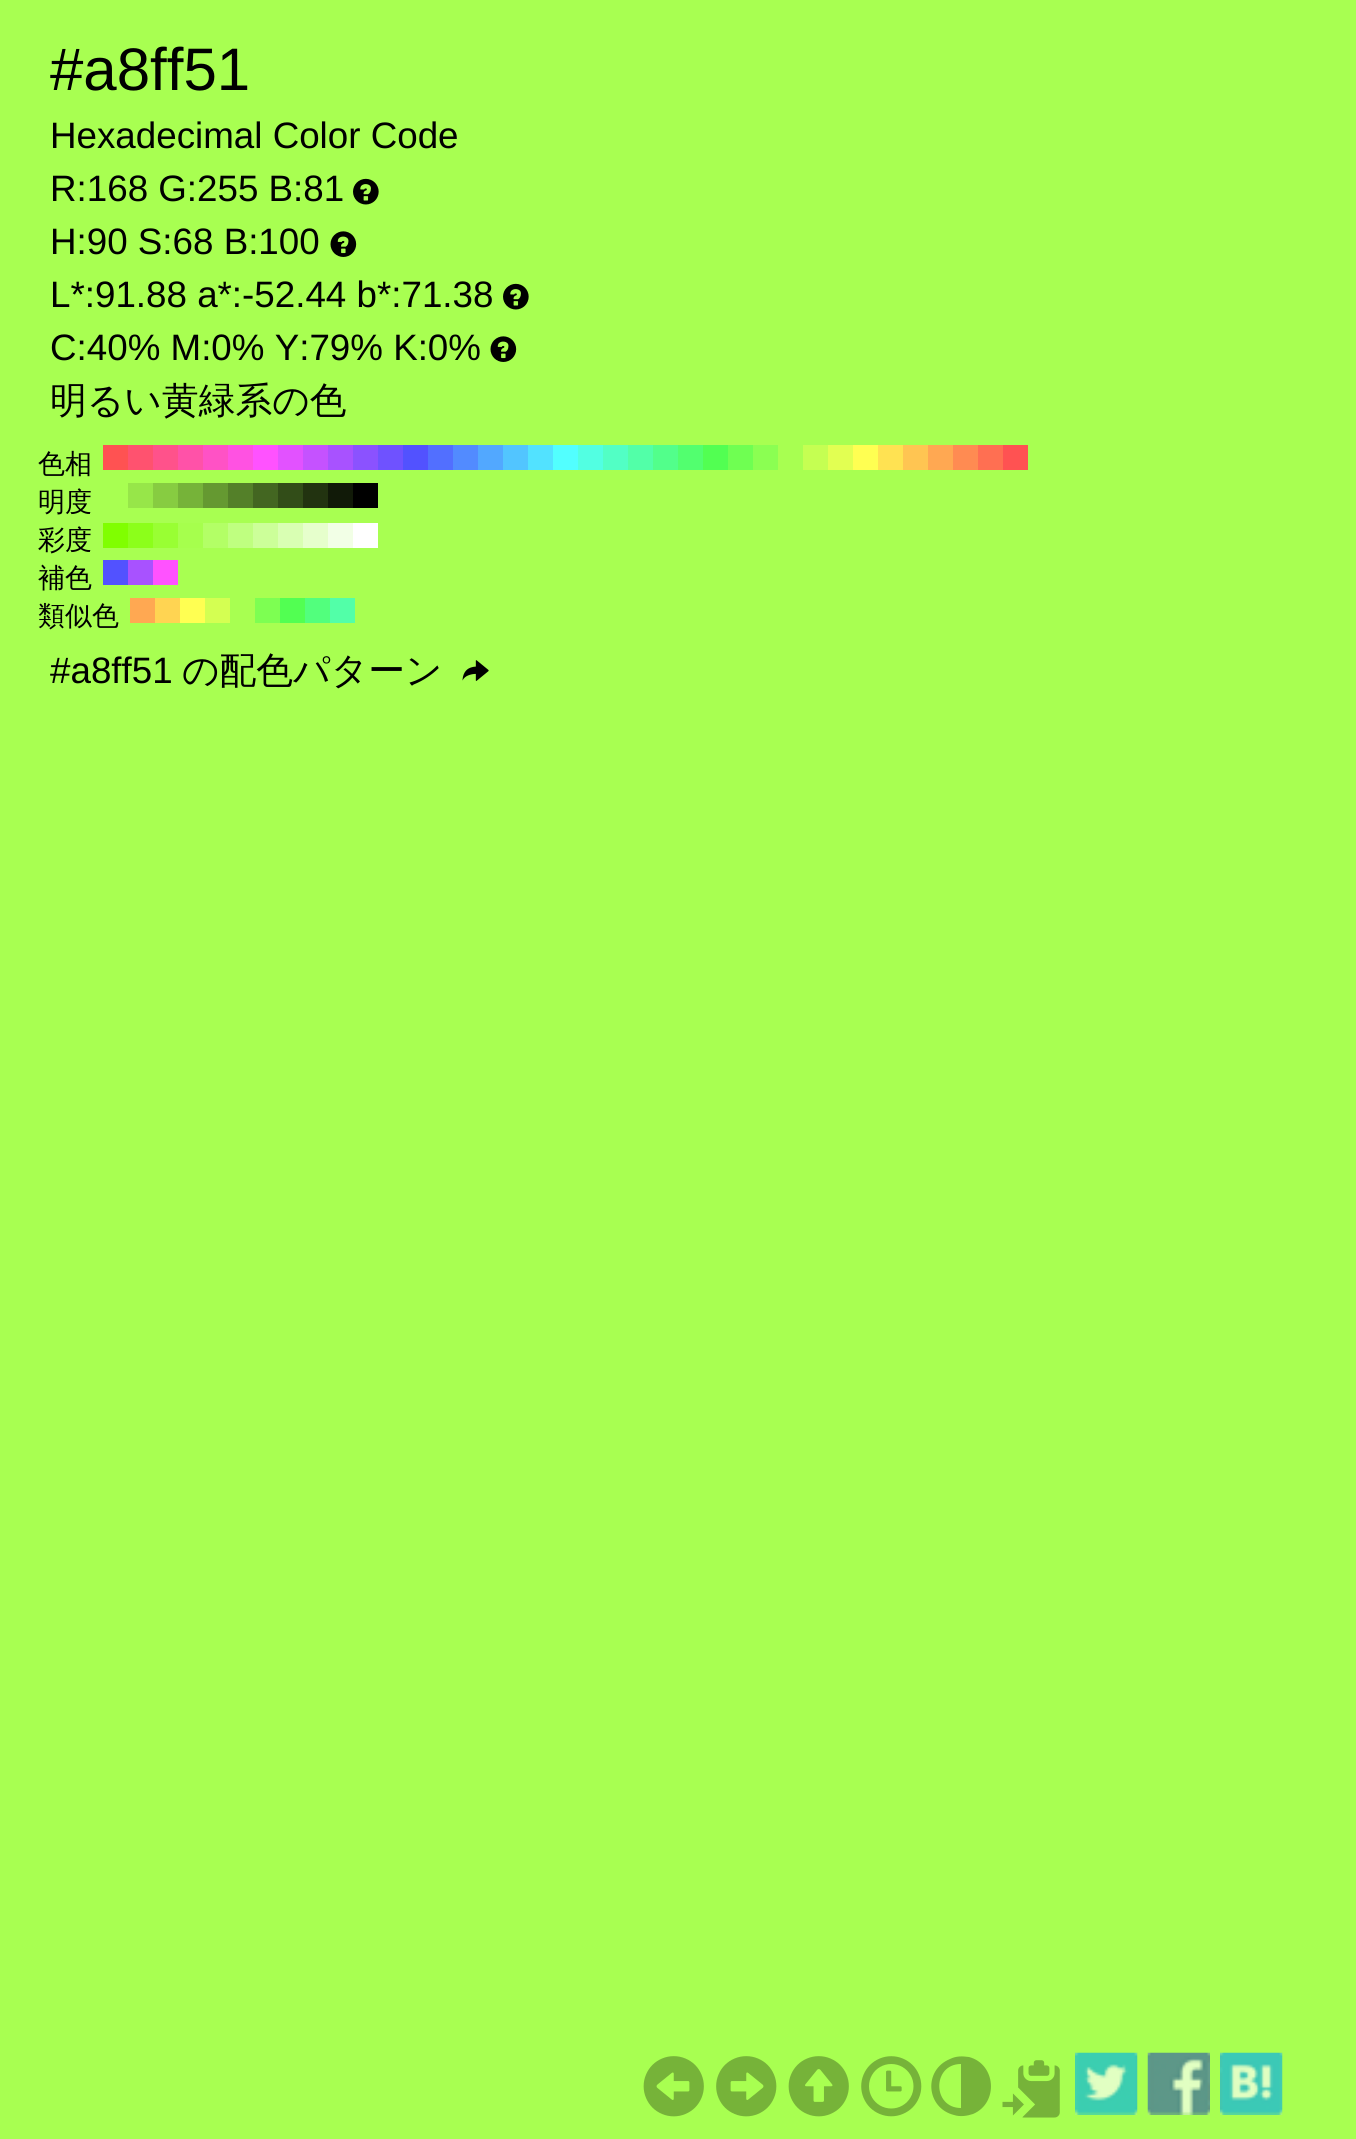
import math
import cairo

surface = cairo.ImageSurface(cairo.FORMAT_RGB24, 1356, 2139)
cr = cairo.Context(surface)
options = cairo.FontOptions()
options.set_hint_metrics(cairo.HINT_METRICS_OFF)
options.set_hint_style(cairo.HINT_STYLE_NONE)
cr.set_font_options(options)
cr.set_miter_limit(4)


def rgb(code):
    cr.set_source_rgb(*(v / 255 for v in bytes.fromhex(code[-6:])))


def image(path, x, y, w, h):
    cr.save()
    cr.set_source_surface(cairo.ImageSurface.create_from_png(path), x, y)
    cr.rectangle(x, y, w, h)
    cr.fill()
    cr.restore()


rgb("#a8ff51")
cr.paint()
image("img/1.png", 353, 178, 26, 27)
image("img/2.png", 330, 231, 27, 26)
image("img/1.png", 503, 283, 26, 27)
image("img/2.png", 490, 336, 27, 26)
for x, y, w, h, color in [
    (103, 445, 25, 25, "#ff5252"),
    (128, 445, 25, 25, "#ff526f"),
    (153, 445, 25, 25, "#ff528b"),
    (178, 445, 25, 25, "#ff52a8"),
    (203, 445, 25, 25, "#ff52c5"),
    (228, 445, 25, 25, "#ff52e2"),
    (253, 445, 25, 25, "#ff52ff"),
    (278, 445, 25, 25, "#e252ff"),
    (303, 445, 25, 25, "#c552ff"),
    (328, 445, 25, 25, "#a852ff"),
    (353, 445, 25, 25, "#8b52ff"),
    (378, 445, 25, 25, "#6f52ff"),
    (403, 445, 25, 25, "#5252ff"),
    (428, 445, 25, 25, "#526fff"),
    (453, 445, 25, 25, "#528bff"),
    (478, 445, 25, 25, "#52a8ff"),
    (503, 445, 25, 25, "#52c5ff"),
    (528, 445, 25, 25, "#52e2ff"),
    (553, 445, 25, 25, "#52ffff"),
    (578, 445, 25, 25, "#52ffe2"),
    (603, 445, 25, 25, "#52ffc5"),
    (628, 445, 25, 25, "#52ffa8"),
    (653, 445, 25, 25, "#52ff8b"),
    (678, 445, 25, 25, "#52ff6f"),
    (703, 445, 25, 25, "#52ff52"),
    (728, 445, 25, 25, "#6fff52"),
    (753, 445, 25, 25, "#8bff52"),
    (803, 445, 25, 25, "#c5ff52"),
    (828, 445, 25, 25, "#e2ff52"),
    (853, 445, 25, 25, "#ffff52"),
    (878, 445, 25, 25, "#ffe252"),
    (903, 445, 25, 25, "#ffc552"),
    (928, 445, 25, 25, "#ffa852"),
    (953, 445, 25, 25, "#ff8b52"),
    (978, 445, 25, 25, "#ff6f52"),
    (1003, 445, 25, 25, "#ff5252"),
    (128, 483, 25, 25, "#97e649"),
    (153, 483, 25, 25, "#87cc41"),
    (178, 483, 25, 25, "#76b339"),
    (203, 483, 25, 25, "#659931"),
    (228, 483, 25, 25, "#548029"),
    (253, 483, 25, 25, "#436621"),
    (278, 483, 25, 25, "#324d18"),
    (303, 483, 25, 25, "#223310"),
    (328, 483, 25, 25, "#111a08"),
    (353, 483, 25, 25, "#000000"),
    (103, 523, 25, 25, "#80ff00"),
    (128, 523, 25, 25, "#8cff1a"),
    (153, 523, 25, 25, "#99ff33"),
    (178, 523, 25, 25, "#a6ff4d"),
    (203, 523, 25, 25, "#b3ff66"),
    (228, 523, 25, 25, "#bfff80"),
    (253, 523, 25, 25, "#ccff99"),
    (278, 523, 25, 25, "#d9ffb3"),
    (303, 523, 25, 25, "#e6ffcc"),
    (328, 523, 25, 25, "#f2ffe6"),
    (353, 523, 25, 25, "#ffffff"),
    (103, 560, 25, 25, "#5252ff"),
    (128, 560, 25, 25, "#a852ff"),
    (153, 560, 25, 25, "#ff52ff"),
    (130, 598, 25, 25, "#ffa852"),
    (155, 598, 25, 25, "#ffd452"),
    (180, 598, 25, 25, "#ffff52"),
    (205, 598, 25, 25, "#d4ff52"),
    (255, 598, 25, 25, "#7dff52"),
    (280, 598, 25, 25, "#52ff52"),
    (305, 598, 25, 25, "#52ff7d"),
    (330, 598, 25, 25, "#52ffa8"),
]:
    rgb(color)
    cr.rectangle(x, y, w, h)
    cr.fill()
image("img/3.png", 462, 660, 27, 21)
image("img/4.png", 643, 2056, 61, 61)
image("img/5.png", 716, 2056, 61, 61)
image("img/6.png", 788, 2056, 61, 61)
image("img/7.png", 861, 2056, 61, 61)
rgb("#76b339")
cr.new_path()
cr.move_to(950, 2059)
cr.curve_to(956, 2056, 962, 2056, 969, 2057)
cr.curve_to(996, 2064, 999, 2103, 973, 2114)
cr.curve_to(967, 2116, 960, 2117, 954, 2115)
cr.curve_to(926, 2108, 923, 2070, 950, 2059)
cr.close_path()
cr.move_to(961, 2108)
cr.line_to(961, 2064)
cr.curve_to(932, 2064, 932, 2108, 961, 2108)
cr.close_path()
cr.fill()
image("img/8.png", 1002, 2060, 58, 58)
image("img/9.png", 1075, 2052, 63, 63)
image("img/10.png", 1147, 2052, 63, 63)
image("img/11.png", 1220, 2052, 63, 63)
cr.select_font_face("Liberation Sans")
cr.set_font_size(60)
rgb("#000000")
cr.move_to(50, 90)
cr.show_text("#a8ff51")
cr.set_font_size(36.75)
for x, y, s in [
    (50, 148, "Hexadecimal Color Code"),
    (50, 201, "R:168 G:255 B:81"),
    (50, 254, "H:90 S:68 B:100"),
    (50, 307, "L*:91.88 a*:-52.44 b*:71.38"),
    (50, 360, "C:40% M:0% Y:79% K:0%"),
]:
    cr.move_to(x, y)
    cr.show_text(s)
cr.select_font_face("WenQuanYi Zen Hei Medium")
cr.move_to(50, 413)
cr.show_text("明るい黄緑系の色")
cr.set_font_size(27)
for x, y, s in [
    (38, 473, "色相"),
    (38, 511, "明度"),
    (38, 549, "彩度"),
    (38, 587, "補色"),
    (38, 625, "類似色"),
]:
    cr.move_to(x, y)
    cr.show_text(s)
cr.select_font_face("Liberation Sans")
cr.set_font_size(36.75)
cr.move_to(50, 683)
cr.show_text("#a8ff51")
cr.select_font_face("WenQuanYi Zen Hei Medium")
cr.move_to(182, 683)
cr.show_text("の配色パターン")
surface.write_to_png("page.png")
